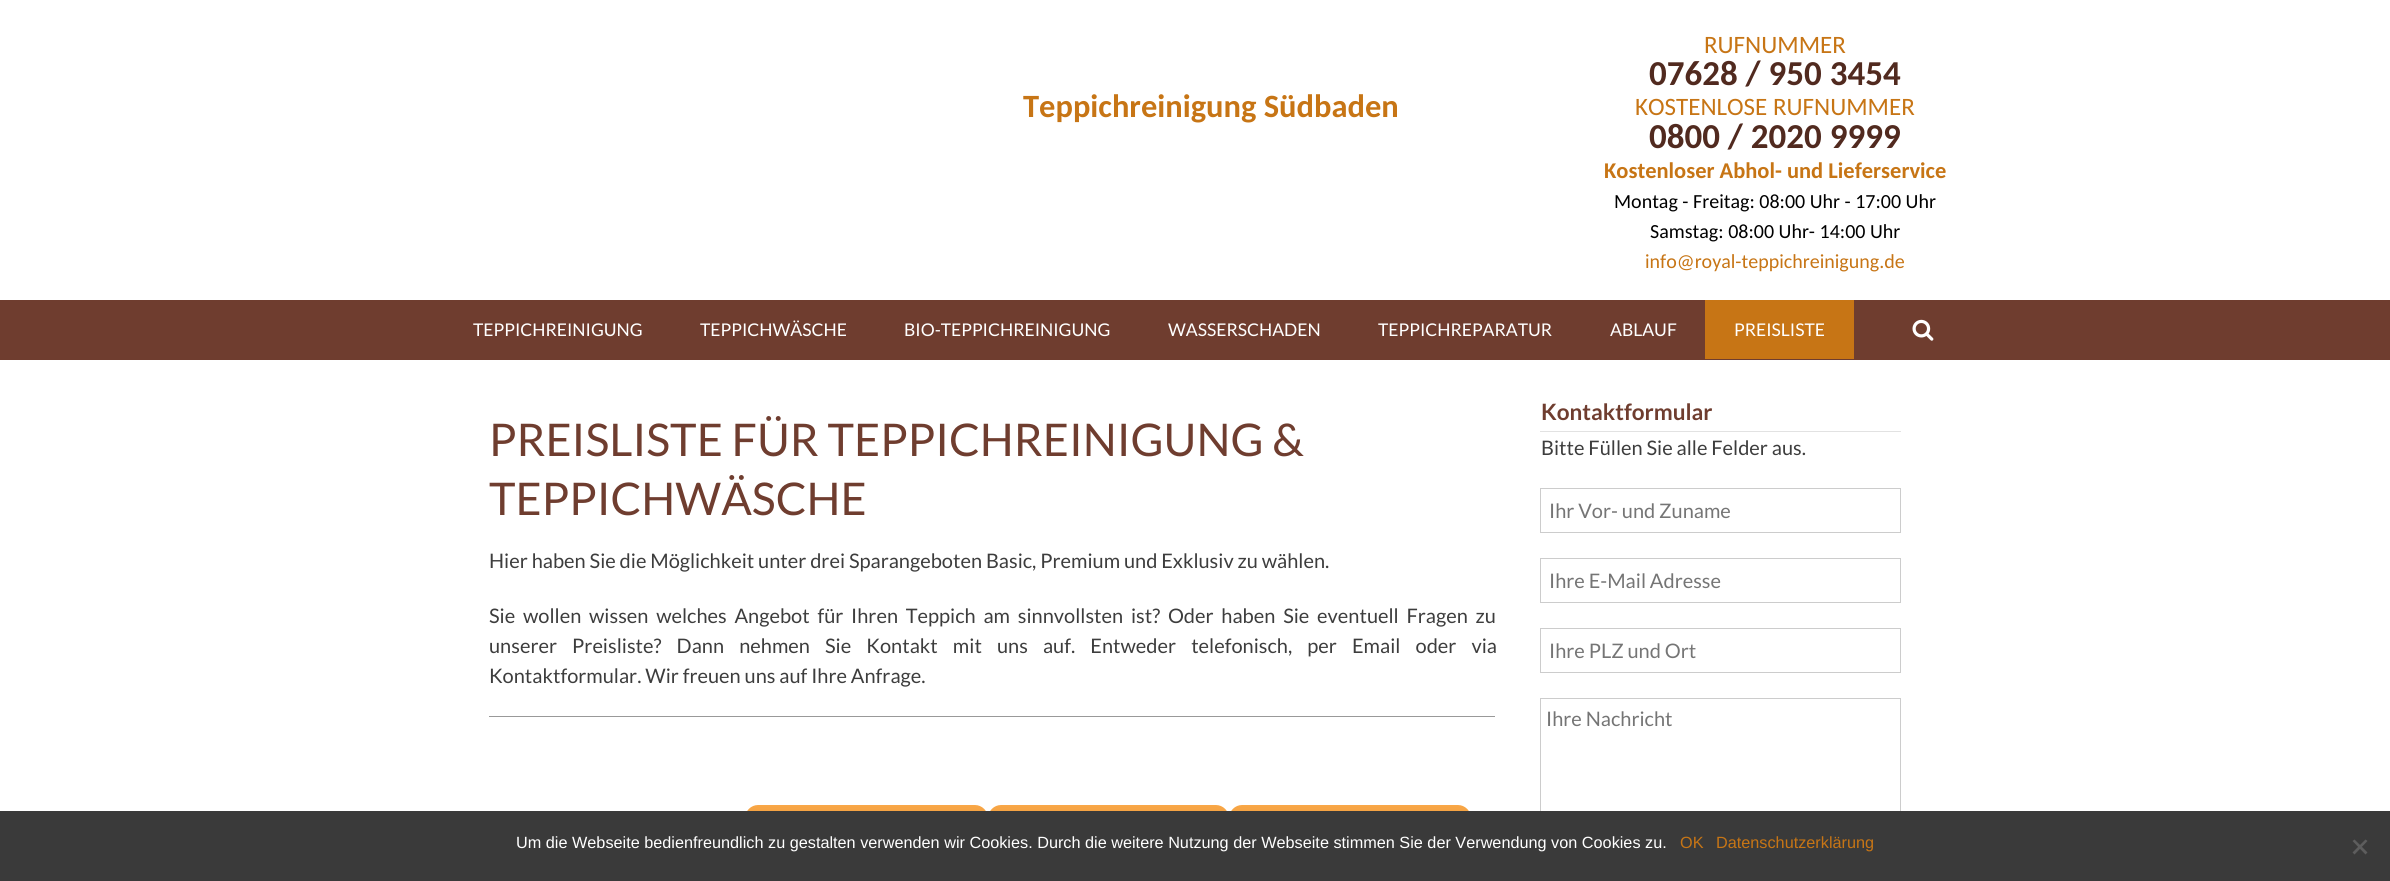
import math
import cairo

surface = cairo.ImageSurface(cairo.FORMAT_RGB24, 2390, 881)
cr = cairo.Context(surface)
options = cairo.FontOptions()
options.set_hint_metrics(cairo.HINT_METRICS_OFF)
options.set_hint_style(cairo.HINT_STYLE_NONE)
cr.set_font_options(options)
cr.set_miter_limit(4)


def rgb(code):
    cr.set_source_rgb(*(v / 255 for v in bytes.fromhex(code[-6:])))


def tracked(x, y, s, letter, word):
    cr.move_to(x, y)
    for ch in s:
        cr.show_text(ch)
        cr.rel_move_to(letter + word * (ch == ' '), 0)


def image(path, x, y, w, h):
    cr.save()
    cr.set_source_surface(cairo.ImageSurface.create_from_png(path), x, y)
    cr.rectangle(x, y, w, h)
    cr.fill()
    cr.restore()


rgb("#ffffff")
cr.paint()
rgb("#6f3d2f")
cr.rectangle(0, 300, 2390, 60)
cr.fill()
rgb("#c77515")
cr.rectangle(1705, 300, 149, 59)
cr.fill()
image("img/1.png", 1912, 319, 22, 22)
rgb("#999999")
cr.rectangle(489, 716, 1006, 1)
cr.fill()
gradient = cairo.LinearGradient(866, 805, 866, 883)
gradient.add_color_stop_rgba(0, 0.976, 0.655, 0.278, 1)
gradient.add_color_stop_rgba(1, 0.78, 0.459, 0.082, 1)
cr.set_source(gradient)
cr.new_path()
cr.move_to(758, 805)
cr.line_to(975, 805)
cr.curve_to(982, 805, 988, 811, 988, 818)
cr.line_to(988, 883)
cr.line_to(745, 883)
cr.line_to(745, 818)
cr.curve_to(745, 811, 751, 805, 758, 805)
cr.close_path()
cr.fill()
gradient = cairo.LinearGradient(1108, 805, 1108, 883)
gradient.add_color_stop_rgba(0, 0.976, 0.655, 0.278, 1)
gradient.add_color_stop_rgba(1, 0.78, 0.459, 0.082, 1)
cr.set_source(gradient)
cr.new_path()
cr.move_to(1001, 805)
cr.line_to(1216, 805)
cr.curve_to(1223, 805, 1229, 811, 1229, 818)
cr.line_to(1229, 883)
cr.line_to(988, 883)
cr.line_to(988, 818)
cr.curve_to(988, 811, 994, 805, 1001, 805)
cr.close_path()
cr.fill()
gradient = cairo.LinearGradient(1350, 805, 1350, 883)
gradient.add_color_stop_rgba(0, 0.976, 0.655, 0.278, 1)
gradient.add_color_stop_rgba(1, 0.78, 0.459, 0.082, 1)
cr.set_source(gradient)
cr.new_path()
cr.move_to(1242, 805)
cr.line_to(1458, 805)
cr.curve_to(1465, 805, 1471, 811, 1471, 818)
cr.line_to(1471, 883)
cr.line_to(1229, 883)
cr.line_to(1229, 818)
cr.curve_to(1229, 811, 1235, 805, 1242, 805)
cr.close_path()
cr.fill()
rgb("#e2e2e2")
cr.rectangle(1540, 431, 361, 1)
cr.fill()
cr.rectangle(1540.5, 488.5, 360, 44)
rgb("#cccccc")
cr.set_line_width(1)
cr.stroke()
cr.rectangle(1540.5, 558.5, 360, 44)
cr.stroke()
cr.rectangle(1540.5, 628.5, 360, 44)
cr.stroke()
cr.rectangle(1540.5, 698.5, 360, 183)
cr.stroke()
rgb("#3a3a3a")
cr.rectangle(0, 811, 2390, 70)
cr.fill()
rgb("#5d5d5d")
cr.new_path()
cr.move_to(2365.5, 839.5)
cr.line_to(2367.5, 841)
cr.line_to(2354.5, 854.5)
cr.line_to(2352.5, 852.5)
cr.close_path()
cr.fill()
cr.new_path()
cr.move_to(2352.5, 841)
cr.line_to(2354.5, 839.5)
cr.line_to(2367.5, 852.5)
cr.line_to(2365.5, 854.5)
cr.close_path()
cr.fill()
cr.select_font_face("Carlito", cairo.FONT_SLANT_NORMAL, cairo.FONT_WEIGHT_BOLD)
cr.set_font_size(32.5)
rgb("#c77515")
cr.move_to(1023, 117)
cr.show_text("Teppichreinigung Südbaden")
cr.select_font_face("Carlito")
cr.set_font_size(25)
cr.move_to(1704, 53)
cr.show_text("RUFNUMMER")
cr.select_font_face("Carlito", cairo.FONT_SLANT_NORMAL, cairo.FONT_WEIGHT_BOLD)
cr.set_font_size(35)
rgb("#512a1f")
cr.move_to(1649, 85)
cr.show_text("07628 / 950 3454")
cr.select_font_face("Carlito")
cr.set_font_size(25)
rgb("#c77515")
cr.move_to(1635, 115)
cr.show_text("KOSTENLOSE RUFNUMMER")
cr.select_font_face("Carlito", cairo.FONT_SLANT_NORMAL, cairo.FONT_WEIGHT_BOLD)
cr.set_font_size(35)
rgb("#512a1f")
cr.move_to(1649, 148)
cr.show_text("0800 / 2020 9999")
cr.set_font_size(22.5)
rgb("#c77515")
cr.move_to(1604, 178)
cr.show_text("Kostenloser Abhol- und Lieferservice")
cr.select_font_face("Carlito")
cr.set_font_size(20)
rgb("#000000")
cr.move_to(1614, 208)
cr.show_text("Montag - Freitag: 08:00 Uhr - 17:00 Uhr")
cr.move_to(1650, 238)
cr.show_text("Samstag: 08:00 Uhr- 14:00 Uhr")
rgb("#c77515")
cr.move_to(1645, 268)
cr.show_text("info@royal-teppichreinigung.de")
cr.select_font_face("Lato")
cr.set_font_size(17.5)
rgb("#ffffff")
for x, y, s in [
    (473, 336, "TEPPICHREINIGUNG"),
    (700, 336, "TEPPICHWÄSCHE"),
    (904, 336, "BIO-TEPPICHREINIGUNG"),
    (1168, 336, "WASSERSCHADEN"),
    (1378, 336, "TEPPICHREPARATUR"),
    (1610, 336, "ABLAUF"),
    (1734, 336, "PREISLISTE"),
]:
    cr.move_to(x, y)
    cr.show_text(s)
cr.set_font_size(45)
rgb("#6f3d2f")
cr.move_to(489, 456)
cr.show_text("PREISLISTE FÜR TEPPICHREINIGUNG &")
cr.move_to(489, 515)
cr.show_text("TEPPICHWÄSCHE")
cr.set_font_size(20)
rgb("#3d3d3d")
cr.move_to(489, 568)
cr.show_text("Hier haben Sie die Möglichkeit unter drei Sparangeboten Basic, Premium und Exklusiv zu wählen.")
tracked(489, 623, "Sie wollen wissen welches Angebot für Ihren Teppich am sinnvollsten ist? Oder haben Sie eventuell Fragen zu", 0, 3.9)
tracked(489, 653, "unserer Preisliste? Dann nehmen Sie Kontakt mit uns auf. Entweder telefonisch, per Email oder via", 0, 11.25)
cr.move_to(489, 683)
cr.show_text("Kontaktformular. Wir freuen uns auf Ihre Anfrage.")
cr.select_font_face("Lato", cairo.FONT_SLANT_NORMAL, cairo.FONT_WEIGHT_BOLD)
cr.set_font_size(22.5)
rgb("#6f3d2f")
cr.move_to(1541, 420)
cr.show_text("Kontaktformular")
cr.select_font_face("Lato")
cr.set_font_size(20)
rgb("#3d3d3d")
cr.move_to(1541, 455)
cr.show_text("Bitte Füllen Sie alle Felder aus.")
rgb("#757575")
for x, y, s in [
    (1549, 518, "Ihr Vor- und Zuname"),
    (1549, 588, "Ihre E-Mail Adresse"),
    (1549, 658, "Ihre PLZ und Ort"),
    (1546, 726, "Ihre Nachricht"),
]:
    cr.move_to(x, y)
    cr.show_text(s)
cr.select_font_face("Liberation Sans")
cr.set_font_size(16.25)
rgb("#ffffff")
cr.move_to(516, 848)
cr.show_text("Um die Webseite bedienfreundlich zu gestalten verwenden wir Cookies. Durch die weitere Nutzung der Webseite stimmen Sie der Verwendung von Cookies zu.")
rgb("#c77515")
cr.move_to(1680, 848)
cr.show_text("OK")
cr.move_to(1716, 848)
cr.show_text("Datenschutzerklärung")
surface.write_to_png("page.png")
